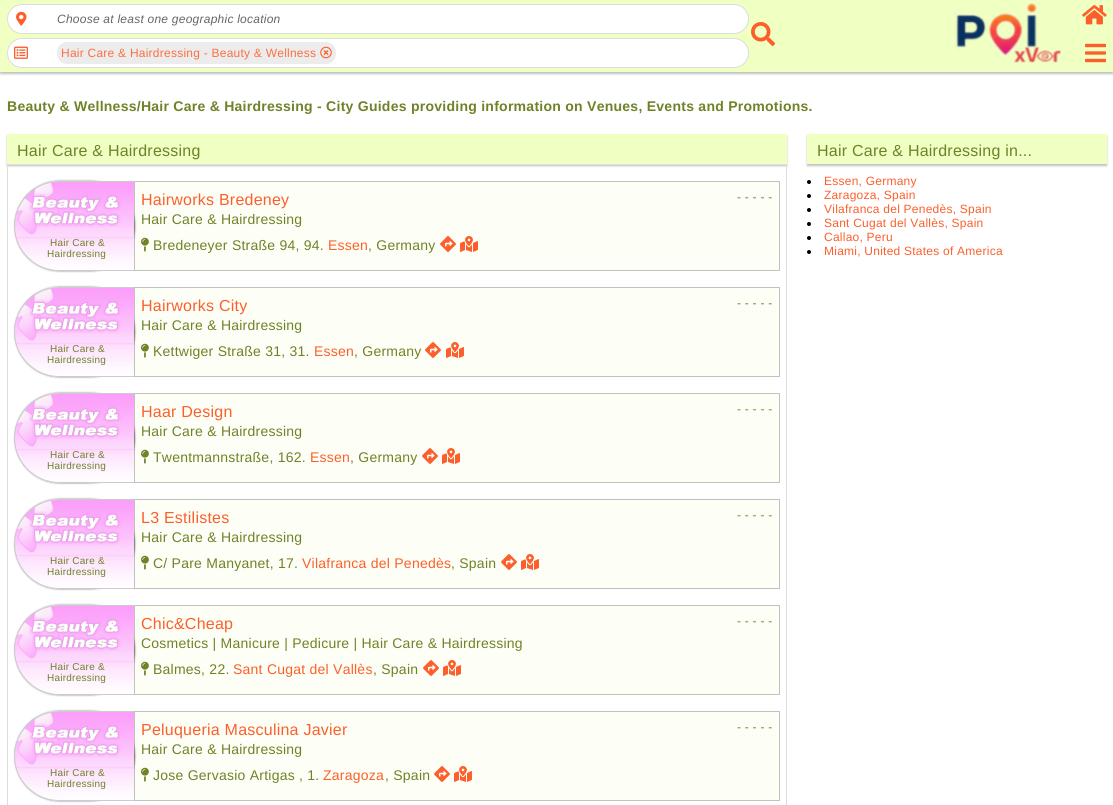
import math
import cairo

surface = cairo.ImageSurface(cairo.FORMAT_RGB24, 1113, 805)
cr = cairo.Context(surface)
options = cairo.FontOptions()
options.set_hint_metrics(cairo.HINT_METRICS_OFF)
options.set_hint_style(cairo.HINT_STYLE_NONE)
cr.set_font_options(options)
cr.set_miter_limit(4)


def rgb(code):
    cr.set_source_rgb(*(v / 255 for v in bytes.fromhex(code[-6:])))


def tracked(x, y, s, letter, word):
    cr.move_to(x, y)
    for ch in s:
        cr.show_text(ch)
        cr.rel_move_to(letter + word * (ch == ' '), 0)


def rrect(x, y, w, h, r):
    cr.new_sub_path()
    for i, (u, v) in enumerate([(x + w - r, y + h - r), (x + r, y + h - r), (x + r, y + r), (x + w - r, y + r)]):
        cr.arc(u, v, r, i * math.pi / 2, (i + 1) * math.pi / 2)
    cr.close_path()


def soft_shadow(x, y, w, h, r, blur, alpha):
    cr.push_group_with_content(cairo.CONTENT_ALPHA)
    cr.set_operator(cairo.OPERATOR_SOURCE)
    for i in range(15, -16, -2):
        e = blur * i / 6
        if min(w, h) + 2 * e > 0:
            cr.set_source_rgba(0, 0, 0, alpha * math.erfc((i - 1) / 8.5) / 2)
            rrect(x - e, y - e, w + 2 * e, h + 2 * e, max(0, min(r + e + blur * .6, min(w, h) / 2 + e)))
            cr.fill()
    cr.mask(cr.pop_group())


def image(path, x, y, w, h):
    cr.save()
    cr.set_source_surface(cairo.ImageSurface.create_from_png(path), x, y)
    cr.rectangle(x, y, w, h)
    cr.fill()
    cr.restore()


rgb("#ffffff")
cr.paint()
rgb("#202124")
soft_shadow(0, 2, 1113, 72, 0, 1, 0.28)
rgb("#f0ffc2")
cr.rectangle(0, 0, 1113, 72)
cr.fill()
rgb("#ffffff")
rrect(7.5, 4.5, 741, 29, 14.5)
cr.fill_preserve()
rgb("#dddddd")
cr.set_line_width(1)
cr.stroke()
image("img/1.png", 16, 11, 11, 15)
rgb("#ffffff")
rrect(7.5, 38.5, 741, 29, 14.5)
cr.fill_preserve()
rgb("#dddddd")
cr.stroke()
image("img/2.png", 14, 46, 14, 13)
rgb("#edecec")
rrect(57, 42, 279, 22, 10)
cr.fill()
image("img/3.png", 320, 46, 12, 13)
image("img/4.png", 751, 22, 24, 24)
image("img/5.png", 953, 3, 108, 60)
image("img/6.png", 1082, 5, 25, 20)
image("img/7.png", 1085, 43, 21, 20)
rgb("#202124")
soft_shadow(7, 136, 780, 30, 0, 1, 0.28)
rgb("#f0ffc2")
cr.rectangle(7, 134, 780, 30)
cr.fill()
cr.rectangle(7.5, 164.5, 779, 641)
rgb("#dddddd")
cr.stroke()
rgb("#000000")
soft_shadow(15, 181, 120, 90, 45, 1, 0.51)
image("img/8.png", 15, 181, 119, 90)
rgb("#cccccc")
cr.set_fill_rule(cairo.FILL_RULE_EVEN_ODD)
cr.new_path()
cr.move_to(59, 181)
cr.line_to(134, 181)
cr.line_to(134, 271)
cr.line_to(59, 271)
cr.curve_to(34, 271, 14, 251, 14, 226)
cr.curve_to(14, 201, 34, 181, 59, 181)
cr.close_path()
cr.move_to(59, 182)
cr.line_to(134, 182)
cr.line_to(134, 270)
cr.line_to(59, 270)
cr.curve_to(35, 270, 15, 250, 15, 226)
cr.curve_to(15, 202, 35, 182, 59, 182)
cr.close_path()
cr.fill()
cr.set_source_rgba(0.922, 1, 0.635, 0.1)
cr.rectangle(134, 181, 646, 90)
cr.fill()
cr.rectangle(134.5, 181.5, 645, 89)
cr.set_source_rgba(0, 0, 0, 0.24)
cr.stroke()
image("img/9.png", 141, 237, 8, 15)
image("img/10.png", 440, 236, 16, 16)
image("img/11.png", 460, 236, 18, 16)
rgb("#000000")
soft_shadow(15, 287, 120, 90, 45, 1, 0.51)
image("img/8.png", 15, 287, 119, 90)
rgb("#cccccc")
cr.new_path()
cr.move_to(59, 287)
cr.line_to(134, 287)
cr.line_to(134, 377)
cr.line_to(59, 377)
cr.curve_to(34, 377, 14, 357, 14, 332)
cr.curve_to(14, 307, 34, 287, 59, 287)
cr.close_path()
cr.move_to(59, 288)
cr.line_to(134, 288)
cr.line_to(134, 376)
cr.line_to(59, 376)
cr.curve_to(35, 376, 15, 356, 15, 332)
cr.curve_to(15, 308, 35, 288, 59, 288)
cr.close_path()
cr.fill()
cr.set_source_rgba(0.922, 1, 0.635, 0.1)
cr.rectangle(134, 287, 646, 90)
cr.fill()
cr.rectangle(134.5, 287.5, 645, 89)
cr.set_source_rgba(0, 0, 0, 0.24)
cr.stroke()
image("img/9.png", 141, 343, 8, 15)
image("img/10.png", 425, 342, 16, 16)
image("img/11.png", 446, 342, 18, 16)
rgb("#000000")
soft_shadow(15, 393, 120, 90, 45, 1, 0.51)
image("img/12.png", 15, 393, 119, 90)
rgb("#cccccc")
cr.new_path()
cr.move_to(59, 393)
cr.line_to(134, 393)
cr.line_to(134, 483)
cr.line_to(59, 483)
cr.curve_to(34, 483, 14, 463, 14, 438)
cr.curve_to(14, 413, 34, 393, 59, 393)
cr.close_path()
cr.move_to(59, 394)
cr.line_to(134, 394)
cr.line_to(134, 482)
cr.line_to(59, 482)
cr.curve_to(35, 482, 15, 462, 15, 438)
cr.curve_to(15, 414, 35, 394, 59, 394)
cr.close_path()
cr.fill()
cr.set_source_rgba(0.922, 1, 0.635, 0.1)
cr.rectangle(134, 393, 646, 90)
cr.fill()
cr.rectangle(134.5, 393.5, 645, 89)
cr.set_source_rgba(0, 0, 0, 0.24)
cr.stroke()
image("img/9.png", 141, 449, 8, 15)
image("img/10.png", 422, 448, 16, 16)
image("img/11.png", 442, 448, 18, 16)
rgb("#000000")
soft_shadow(15, 499, 120, 90, 45, 1, 0.51)
image("img/8.png", 15, 499, 119, 90)
rgb("#cccccc")
cr.new_path()
cr.move_to(59, 499)
cr.line_to(134, 499)
cr.line_to(134, 589)
cr.line_to(59, 589)
cr.curve_to(34, 589, 14, 569, 14, 544)
cr.curve_to(14, 519, 34, 499, 59, 499)
cr.close_path()
cr.move_to(59, 500)
cr.line_to(134, 500)
cr.line_to(134, 588)
cr.line_to(59, 588)
cr.curve_to(35, 588, 15, 568, 15, 544)
cr.curve_to(15, 520, 35, 500, 59, 500)
cr.close_path()
cr.fill()
cr.set_source_rgba(0.922, 1, 0.635, 0.1)
cr.rectangle(134, 499, 646, 90)
cr.fill()
cr.rectangle(134.5, 499.5, 645, 89)
cr.set_source_rgba(0, 0, 0, 0.24)
cr.stroke()
image("img/9.png", 141, 555, 8, 15)
image("img/10.png", 501, 554, 16, 16)
image("img/11.png", 521, 554, 18, 16)
rgb("#000000")
soft_shadow(15, 605, 120, 90, 45, 1, 0.51)
image("img/13.png", 15, 605, 119, 90)
rgb("#cccccc")
cr.new_path()
cr.move_to(59, 605)
cr.line_to(134, 605)
cr.line_to(134, 695)
cr.line_to(59, 695)
cr.curve_to(34, 695, 14, 675, 14, 650)
cr.curve_to(14, 625, 34, 605, 59, 605)
cr.close_path()
cr.move_to(59, 606)
cr.line_to(134, 606)
cr.line_to(134, 694)
cr.line_to(59, 694)
cr.curve_to(35, 694, 15, 674, 15, 650)
cr.curve_to(15, 626, 35, 606, 59, 606)
cr.close_path()
cr.fill()
cr.set_source_rgba(0.922, 1, 0.635, 0.1)
cr.rectangle(134, 605, 646, 90)
cr.fill()
cr.rectangle(134.5, 605.5, 645, 89)
cr.set_source_rgba(0, 0, 0, 0.24)
cr.stroke()
image("img/9.png", 141, 661, 8, 15)
image("img/10.png", 423, 660, 16, 16)
image("img/11.png", 443, 660, 18, 16)
rgb("#000000")
soft_shadow(15, 711, 120, 90, 45, 1, 0.51)
image("img/8.png", 15, 711, 119, 90)
rgb("#cccccc")
cr.new_path()
cr.move_to(59, 711)
cr.line_to(134, 711)
cr.line_to(134, 801)
cr.line_to(59, 801)
cr.curve_to(34, 801, 14, 781, 14, 756)
cr.curve_to(14, 731, 34, 711, 59, 711)
cr.close_path()
cr.move_to(59, 712)
cr.line_to(134, 712)
cr.line_to(134, 800)
cr.line_to(59, 800)
cr.curve_to(35, 800, 15, 780, 15, 756)
cr.curve_to(15, 732, 35, 712, 59, 712)
cr.close_path()
cr.fill()
cr.set_source_rgba(0.922, 1, 0.635, 0.1)
cr.rectangle(134, 711, 646, 90)
cr.fill()
cr.rectangle(134.5, 711.5, 645, 89)
cr.set_source_rgba(0, 0, 0, 0.24)
cr.stroke()
image("img/9.png", 141, 767, 8, 15)
image("img/10.png", 434, 766, 16, 16)
image("img/11.png", 454, 766, 18, 16)
rgb("#202124")
soft_shadow(807, 136, 300, 30, 0, 1, 0.28)
rgb("#f0ffc2")
cr.rectangle(807, 134, 300, 30)
cr.fill()
rgb("#000000")
cr.arc(809, 182, 2, 0, 2 * math.pi)
cr.fill()
cr.arc(809, 196, 2, 0, 2 * math.pi)
cr.fill()
cr.arc(809, 210, 2, 0, 2 * math.pi)
cr.fill()
cr.arc(809, 224, 2, 0, 2 * math.pi)
cr.fill()
cr.arc(809, 238, 2, 0, 2 * math.pi)
cr.fill()
cr.arc(809, 252, 2, 0, 2 * math.pi)
cr.fill()
cr.select_font_face("Liberation Sans", cairo.FONT_SLANT_ITALIC)
cr.set_font_size(12)
rgb("#666666")
tracked(57, 23, "Choose at least one geographic location", 0.24, 0)
cr.select_font_face("Liberation Sans")
rgb("#fd7041")
tracked(61, 57, "Hair Care & Hairdressing - Beauty & Wellness", 0.24, 0)
cr.select_font_face("Liberation Sans", cairo.FONT_SLANT_NORMAL, cairo.FONT_WEIGHT_BOLD)
cr.set_font_size(14.05)
rgb("#6e8228")
tracked(7, 111, "Beauty & Wellness/Hair Care & Hairdressing - City Guides providing information on Venues, Events and Promotions.", 0.24, 0)
cr.select_font_face("Liberation Sans")
cr.set_font_size(16)
tracked(17, 156, "Hair Care & Hairdressing", 0.24, 0)
cr.set_font_size(10)
tracked(50, 246, "Hair Care &", 0.24, 0)
tracked(47, 257, "Hairdressing", 0.24, 0)
cr.set_font_size(16)
rgb("#fc5f2b")
tracked(141, 205, "Hairworks Bredeney", 0.24, 0)
cr.set_font_size(12)
rgb("#6e8228")
tracked(737, 201, "- - - - -", 0.24, 0)
cr.set_font_size(14)
tracked(141, 224, "Hair Care & Hairdressing", 0.24, 0)
tracked(153, 250, "Bredeneyer Straße 94, 94.", 0.24, 0)
rgb("#fc5f2b")
tracked(328, 250, "Essen", 0.24, 0)
rgb("#6e8228")
tracked(368, 250, ", Germany", 0.24, 0)
cr.set_font_size(10)
tracked(50, 352, "Hair Care &", 0.24, 0)
tracked(47, 363, "Hairdressing", 0.24, 0)
cr.set_font_size(16)
rgb("#fc5f2b")
tracked(141, 311, "Hairworks City", 0.24, 0)
cr.set_font_size(12)
rgb("#6e8228")
tracked(737, 307, "- - - - -", 0.24, 0)
cr.set_font_size(14)
tracked(141, 330, "Hair Care & Hairdressing", 0.24, 0)
tracked(153, 356, "Kettwiger Straße 31, 31.", 0.24, 0)
rgb("#fc5f2b")
tracked(314, 356, "Essen", 0.24, 0)
rgb("#6e8228")
tracked(354, 356, ", Germany", 0.24, 0)
cr.set_font_size(10)
tracked(50, 458, "Hair Care &", 0.24, 0)
tracked(47, 469, "Hairdressing", 0.24, 0)
cr.set_font_size(16)
rgb("#fc5f2b")
tracked(141, 417, "Haar Design", 0.24, 0)
cr.set_font_size(12)
rgb("#6e8228")
tracked(737, 413, "- - - - -", 0.24, 0)
cr.set_font_size(14)
tracked(141, 436, "Hair Care & Hairdressing", 0.24, 0)
tracked(153, 462, "Twentmannstraße, 162.", 0.24, 0)
rgb("#fc5f2b")
tracked(310, 462, "Essen", 0.24, 0)
rgb("#6e8228")
tracked(350, 462, ", Germany", 0.24, 0)
cr.set_font_size(10)
tracked(50, 564, "Hair Care &", 0.24, 0)
tracked(47, 575, "Hairdressing", 0.24, 0)
cr.set_font_size(16)
rgb("#fc5f2b")
tracked(141, 523, "L3 Estilistes", 0.24, 0)
cr.set_font_size(12)
rgb("#6e8228")
tracked(737, 519, "- - - - -", 0.24, 0)
cr.set_font_size(14)
tracked(141, 542, "Hair Care & Hairdressing", 0.24, 0)
tracked(153, 568, "C/ Pare Manyanet, 17.", 0.24, 0)
rgb("#fc5f2b")
tracked(302, 568, "Vilafranca del Penedès", 0.24, 0)
rgb("#6e8228")
tracked(451, 568, ", Spain", 0.24, 0)
cr.set_font_size(10)
tracked(50, 670, "Hair Care &", 0.24, 0)
tracked(47, 681, "Hairdressing", 0.24, 0)
cr.set_font_size(16)
rgb("#fc5f2b")
tracked(141, 629, "Chic&Cheap", 0.24, 0)
cr.set_font_size(12)
rgb("#6e8228")
tracked(737, 625, "- - - - -", 0.24, 0)
cr.set_font_size(14)
tracked(141, 648, "Cosmetics | Manicure | Pedicure | Hair Care & Hairdressing", 0.24, 0)
tracked(153, 674, "Balmes, 22.", 0.24, 0)
rgb("#fc5f2b")
tracked(233, 674, "Sant Cugat del Vallès", 0.24, 0)
rgb("#6e8228")
tracked(373, 674, ", Spain", 0.24, 0)
cr.set_font_size(10)
tracked(50, 776, "Hair Care &", 0.24, 0)
tracked(47, 787, "Hairdressing", 0.24, 0)
cr.set_font_size(16)
rgb("#fc5f2b")
tracked(141, 735, "Peluqueria Masculina Javier", 0.24, 0)
cr.set_font_size(12)
rgb("#6e8228")
tracked(737, 731, "- - - - -", 0.24, 0)
cr.set_font_size(14)
tracked(141, 754, "Hair Care & Hairdressing", 0.24, 0)
tracked(153, 780, "Jose Gervasio Artigas , 1.", 0.24, 0)
rgb("#fc5f2b")
tracked(323, 780, "Zaragoza", 0.24, 0)
rgb("#6e8228")
tracked(385, 780, ", Spain", 0.24, 0)
cr.set_font_size(16)
tracked(817, 156, "Hair Care & Hairdressing in...", 0.24, 0)
cr.set_font_size(12)
rgb("#fc5f2b")
for x, y, s in [
    (824, 185, "Essen, Germany"),
    (824, 199, "Zaragoza, Spain"),
    (824, 213, "Vilafranca del Penedès, Spain"),
    (824, 227, "Sant Cugat del Vallès, Spain"),
    (824, 241, "Callao, Peru"),
    (824, 255, "Miami, United States of America"),
]:
    tracked(x, y, s, 0.24, 0)
surface.write_to_png("page.png")
